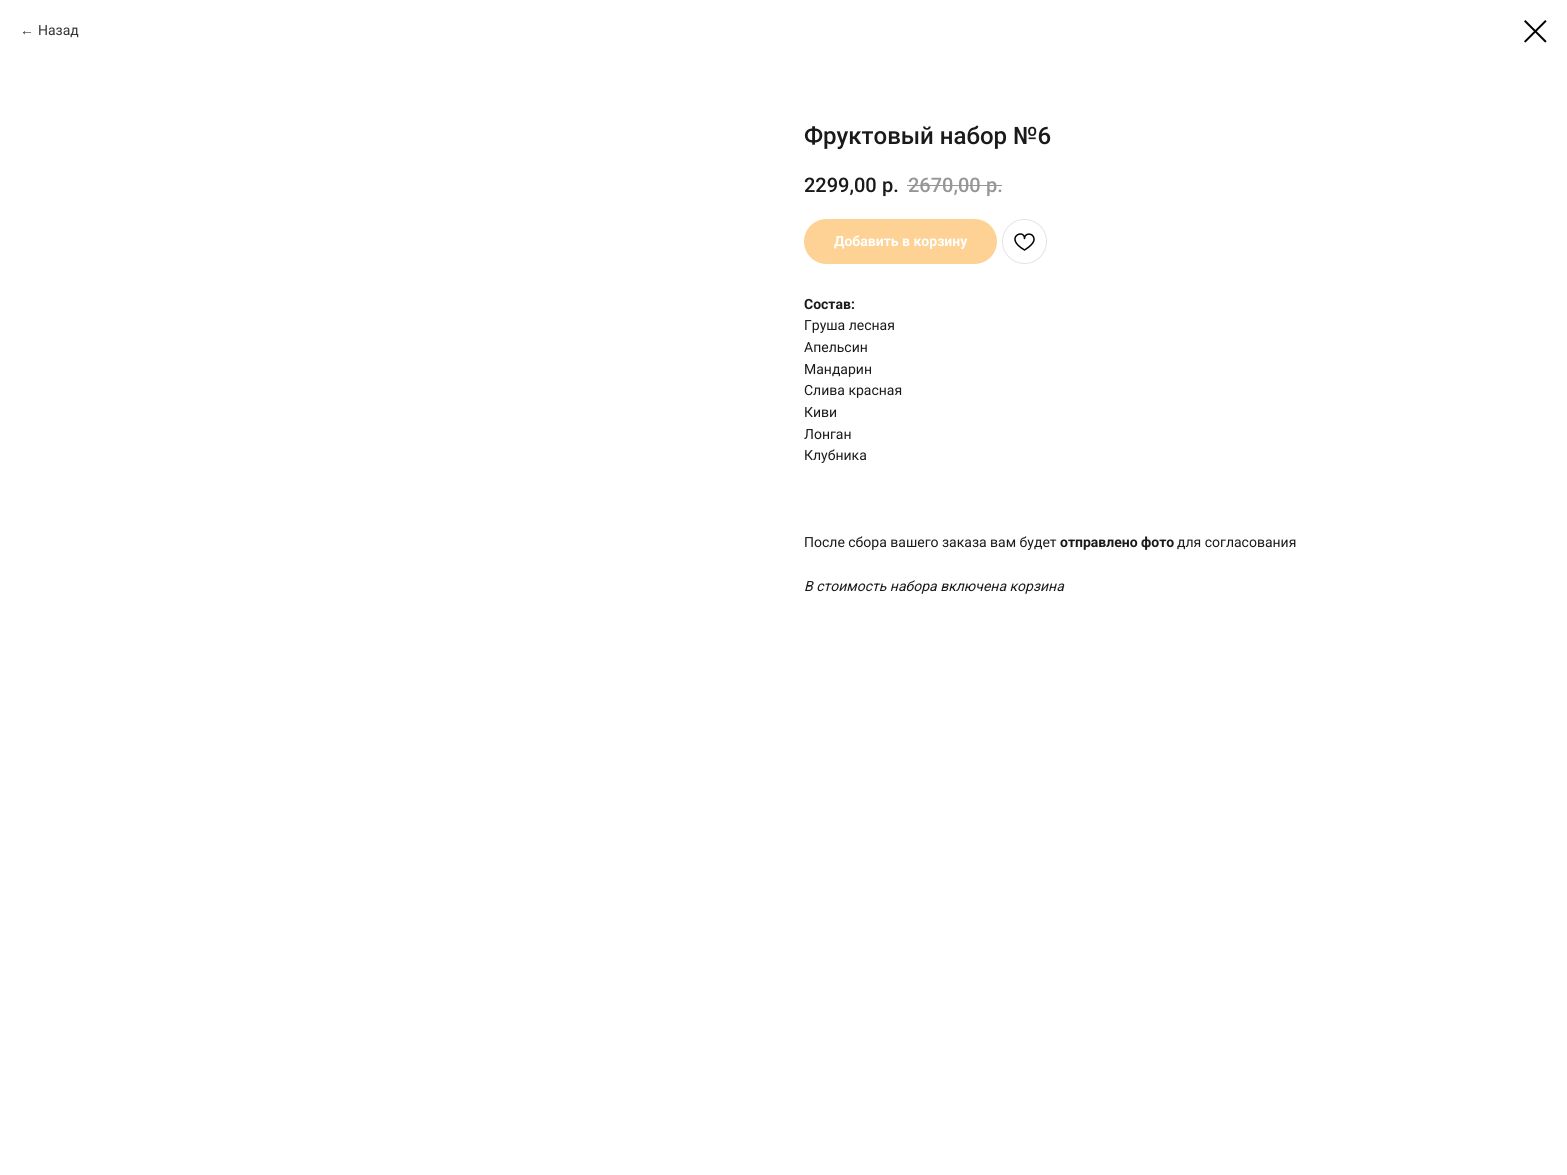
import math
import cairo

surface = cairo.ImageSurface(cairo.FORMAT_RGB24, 1567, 1175)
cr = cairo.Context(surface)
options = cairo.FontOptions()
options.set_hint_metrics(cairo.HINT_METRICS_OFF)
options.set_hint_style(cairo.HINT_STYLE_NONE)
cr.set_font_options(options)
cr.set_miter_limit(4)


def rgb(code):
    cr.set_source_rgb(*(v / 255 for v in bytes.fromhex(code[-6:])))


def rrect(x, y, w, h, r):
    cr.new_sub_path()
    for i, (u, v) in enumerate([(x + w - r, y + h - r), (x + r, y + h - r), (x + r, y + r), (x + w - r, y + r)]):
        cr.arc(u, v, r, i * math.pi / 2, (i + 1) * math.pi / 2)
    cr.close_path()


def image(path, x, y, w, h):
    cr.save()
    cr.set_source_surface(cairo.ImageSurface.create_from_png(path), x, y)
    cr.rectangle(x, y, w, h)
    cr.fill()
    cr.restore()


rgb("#ffffff")
cr.paint()
image("img/1.png", 1524, 20, 23, 23)
rgb("#969696")
cr.rectangle(907, 185, 95, 1)
cr.fill()
rgb("#fed294")
rrect(804, 219, 193, 45, 22.5)
cr.fill()
cr.arc(1024.5, 241.5, 22, 0, 2 * math.pi)
rgb("#e4e4e4")
cr.set_line_width(1)
cr.stroke()
cr.new_path()
cr.move_to(1034, 239.5)
cr.curve_to(1034, 244.5, 1024.5, 250, 1024.5, 250)
cr.curve_to(1003, 237.5, 1024.5, 228, 1024.5, 238.5)
cr.curve_to(1024.5, 232.5, 1034, 232.5, 1034, 239.5)
cr.close_path()
rgb("#000000")
cr.set_line_width(1.5)
cr.set_line_join(cairo.LINE_JOIN_ROUND)
cr.stroke()
cr.select_font_face("Liberation Sans")
cr.set_font_size(14)
rgb("#333333")
cr.move_to(20, 35)
cr.show_text("←")
cr.select_font_face("Roboto")
cr.move_to(38, 35)
cr.show_text("Назад")
cr.select_font_face("Roboto Medium")
cr.set_font_size(24)
rgb("#1a1a1a")
cr.move_to(804, 144)
cr.show_text("Фруктовый набор №6")
cr.set_font_size(20)
cr.move_to(804, 192)
cr.show_text("2299,00")
cr.move_to(882, 192)
cr.show_text("р.")
rgb("#969696")
cr.move_to(908, 192)
cr.show_text("2670,00")
cr.move_to(986, 192)
cr.show_text("р.")
cr.select_font_face("Roboto", cairo.FONT_SLANT_NORMAL, cairo.FONT_WEIGHT_BOLD)
cr.set_font_size(14)
rgb("#ffffff")
cr.move_to(834, 246)
cr.show_text("Добавить в корзину")
rgb("#1a1a1a")
cr.move_to(804, 309)
cr.show_text("Состав:")
cr.select_font_face("Roboto")
for x, y, s in [
    (804, 330, "Груша лесная"),
    (804, 352, "Апельсин"),
    (804, 374, "Мандарин"),
    (804, 395, "Слива красная"),
    (804, 417, "Киви"),
    (804, 439, "Лонган"),
    (804, 460, "Клубника"),
    (804, 547, "После сбора вашего заказа вам будет"),
]:
    cr.move_to(x, y)
    cr.show_text(s)
cr.select_font_face("Roboto", cairo.FONT_SLANT_NORMAL, cairo.FONT_WEIGHT_BOLD)
cr.move_to(1060, 547)
cr.show_text("отправлено фото")
cr.select_font_face("Roboto")
cr.move_to(1177, 547)
cr.show_text("для согласования")
cr.select_font_face("Roboto", cairo.FONT_SLANT_ITALIC)
cr.move_to(804, 591)
cr.show_text("В стоимость набора включена корзина")
surface.write_to_png("page.png")
